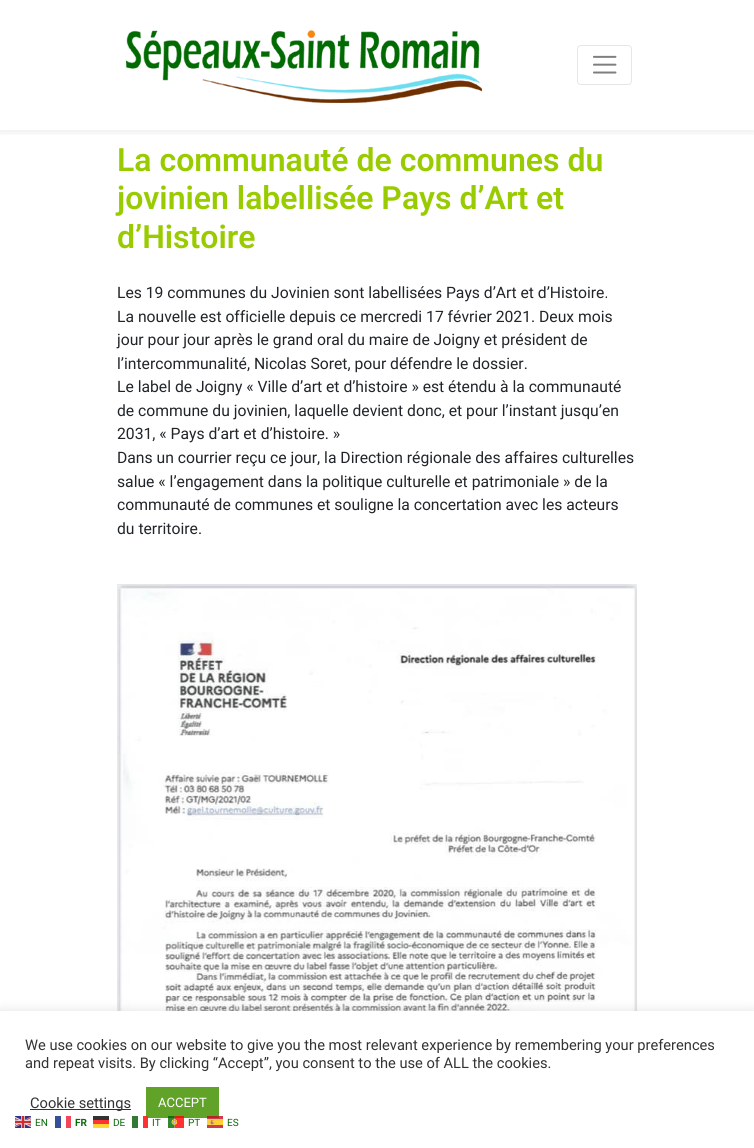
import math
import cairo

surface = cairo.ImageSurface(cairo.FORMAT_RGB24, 754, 1148)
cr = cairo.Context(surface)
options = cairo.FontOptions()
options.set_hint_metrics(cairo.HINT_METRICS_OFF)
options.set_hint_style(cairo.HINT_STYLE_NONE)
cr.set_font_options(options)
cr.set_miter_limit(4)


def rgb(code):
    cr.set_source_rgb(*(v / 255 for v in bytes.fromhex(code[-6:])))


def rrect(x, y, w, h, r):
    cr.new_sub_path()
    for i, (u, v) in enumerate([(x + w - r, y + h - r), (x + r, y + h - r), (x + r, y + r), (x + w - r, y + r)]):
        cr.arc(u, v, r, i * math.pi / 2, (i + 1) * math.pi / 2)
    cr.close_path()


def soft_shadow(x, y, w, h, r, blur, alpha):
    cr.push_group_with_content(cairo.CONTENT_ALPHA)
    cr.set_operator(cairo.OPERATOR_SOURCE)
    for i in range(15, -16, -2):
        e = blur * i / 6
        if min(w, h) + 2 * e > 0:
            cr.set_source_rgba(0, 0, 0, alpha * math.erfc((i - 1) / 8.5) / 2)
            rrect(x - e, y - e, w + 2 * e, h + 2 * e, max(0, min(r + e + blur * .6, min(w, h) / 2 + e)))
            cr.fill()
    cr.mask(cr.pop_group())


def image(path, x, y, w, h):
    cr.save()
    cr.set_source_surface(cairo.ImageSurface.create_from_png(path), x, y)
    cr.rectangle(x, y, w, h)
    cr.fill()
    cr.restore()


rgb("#ffffff")
cr.paint()
cr.save()
cr.rectangle(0, 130, 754, 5)
cr.clip()
rgb("#000000")
soft_shadow(0, 2, 754, 130, 0, 4, 0.08)
cr.restore()
image("img/1.png", 126, 30, 356, 73)
rrect(577.5, 45.5, 54, 39, 3.5)
rgb("#e6e6e6")
cr.set_line_width(1)
cr.stroke()
image("img/2.png", 593, 55, 24, 19)
image("img/3.png", 117, 584, 520, 427)
rgb("#acabab")
soft_shadow(0, 1010, 754, 137, 0, 5, 0.3)
for x, y, w, h, color in [
    (0, 1011, 754, 137, "#ffffff"),
    (30, 1109, 101, 1, "#333333"),
    (146, 1087, 73, 31, "#61a229"),
]:
    rgb(color)
    cr.rectangle(x, y, w, h)
    cr.fill()
image("img/4.png", 15, 1116, 16, 12)
rgb("#335199")
cr.rectangle(55, 1116, 6, 12)
cr.fill()
rgb("#f54659")
cr.rectangle(66, 1116, 5, 12)
cr.fill()
rgb("#ffd633")
cr.rectangle(93, 1124, 16, 4)
cr.fill()
rgb("#333333")
cr.rectangle(93, 1116, 16, 4)
cr.fill()
rgb("#ff3333")
cr.rectangle(93, 1120, 16, 4)
cr.fill()
cr.set_source_rgba(1, 1, 1, 0.8)
cr.rectangle(146, 1116, 2, 2)
cr.fill()
rgb("#337933")
cr.rectangle(132, 1116, 6, 12)
cr.fill()
cr.set_source_rgba(0.988, 0, 0, 0.8)
cr.rectangle(143, 1116, 5, 12)
cr.fill()
image("img/5.png", 168, 1116, 16, 12)
image("img/6.png", 207, 1116, 16, 12)
cr.select_font_face("Roboto SemiBold")
cr.set_font_size(32)
rgb("#99cc00")
for x, y, s in [
    (117, 171, "La communauté de communes du"),
    (117, 209, "jovinien labellisée Pays d’Art et"),
    (117, 248, "d’Histoire"),
]:
    cr.move_to(x, y)
    cr.show_text(s)
cr.select_font_face("Roboto")
cr.set_font_size(15.7)
rgb("#212529")
for x, y, s in [
    (117, 298, "Les 19 communes du Jovinien sont labellisées Pays d’Art et d’Histoire."),
    (117, 322, "La nouvelle est officielle depuis ce mercredi 17 février 2021. Deux mois"),
    (117, 345, "jour pour jour après le grand oral du maire de Joigny et président de"),
    (117, 369, "l’intercommunalité, Nicolas Soret, pour défendre le dossier."),
    (117, 392, "Le label de Joigny « Ville d’art et d’histoire » est étendu à la communauté"),
    (117, 416, "de commune du jovinien, laquelle devient donc, et pour l’instant jusqu’en"),
    (117, 439, "2031, « Pays d’art et d’histoire. »"),
    (117, 463, "Dans un courrier reçu ce jour, la Direction régionale des affaires culturelles"),
    (117, 487, "salue « l’engagement dans la politique culturelle et patrimoniale » de la"),
    (117, 510, "communauté de communes et souligne la concertation avec les acteurs"),
    (117, 534, "du territoire."),
]:
    cr.move_to(x, y)
    cr.show_text(s)
cr.set_font_size(14.65)
rgb("#333333")
for x, y, s in [
    (25, 1050, "We use cookies on our website to give you the most relevant experience by remembering your preferences"),
    (25, 1068, "and repeat visits. By clicking “Accept”, you consent to the use of ALL the cookies."),
    (30, 1108, "Cookie settings"),
]:
    cr.move_to(x, y)
    cr.show_text(s)
cr.set_font_size(13)
rgb("#ffffff")
cr.move_to(158, 1107)
cr.show_text("ACCEPT")
cr.set_font_size(10)
rgb("#096a09")
cr.move_to(35, 1126)
cr.show_text("EN")
cr.select_font_face("Roboto", cairo.FONT_SLANT_NORMAL, cairo.FONT_WEIGHT_BOLD)
cr.move_to(75, 1126)
cr.show_text("FR")
cr.select_font_face("Roboto")
for x, y, s in [
    (113, 1126, "DE"),
    (152, 1126, "IT"),
    (188, 1126, "PT"),
    (227, 1126, "ES"),
]:
    cr.move_to(x, y)
    cr.show_text(s)
surface.write_to_png("page.png")
